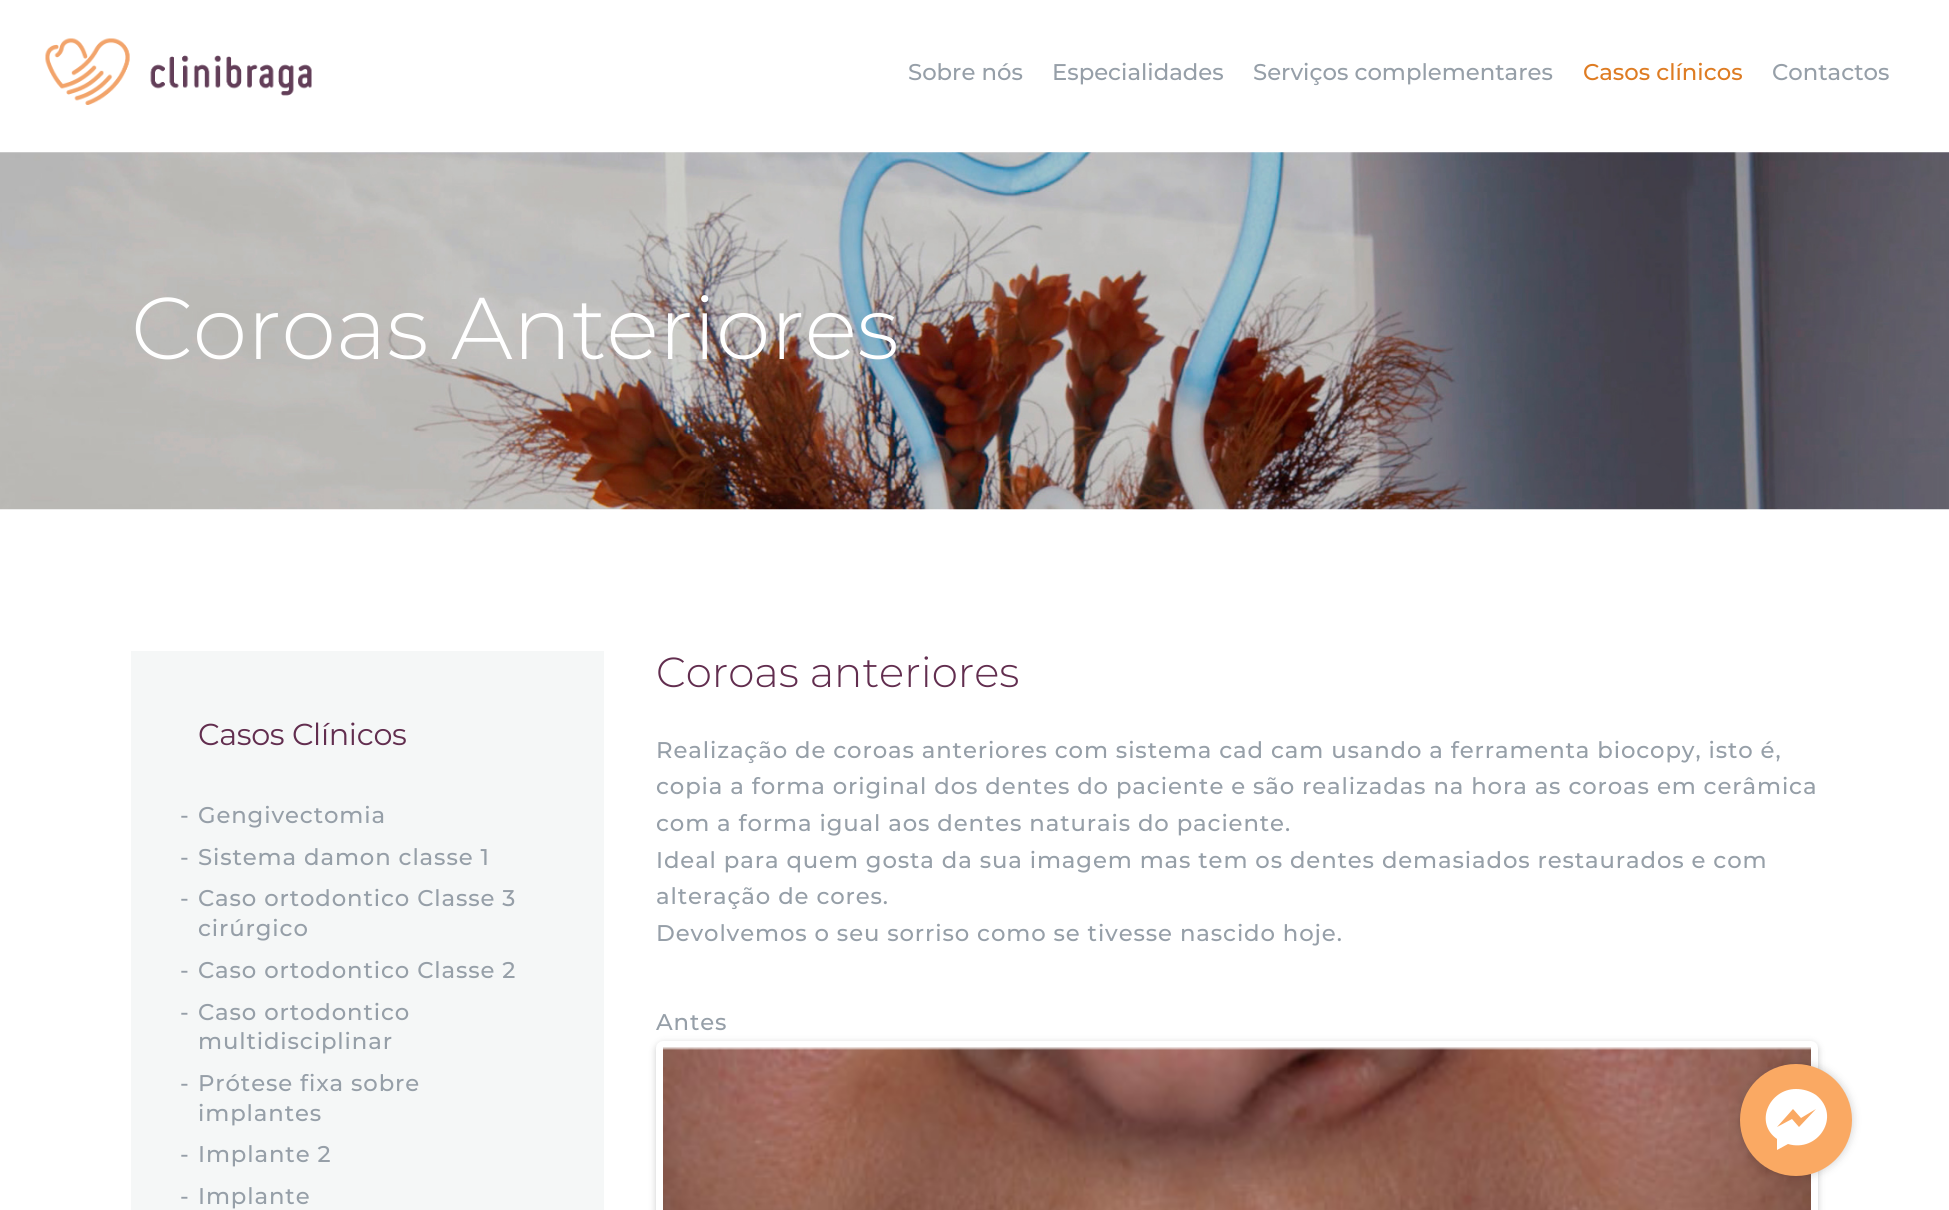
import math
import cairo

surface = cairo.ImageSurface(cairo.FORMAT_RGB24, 1949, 1210)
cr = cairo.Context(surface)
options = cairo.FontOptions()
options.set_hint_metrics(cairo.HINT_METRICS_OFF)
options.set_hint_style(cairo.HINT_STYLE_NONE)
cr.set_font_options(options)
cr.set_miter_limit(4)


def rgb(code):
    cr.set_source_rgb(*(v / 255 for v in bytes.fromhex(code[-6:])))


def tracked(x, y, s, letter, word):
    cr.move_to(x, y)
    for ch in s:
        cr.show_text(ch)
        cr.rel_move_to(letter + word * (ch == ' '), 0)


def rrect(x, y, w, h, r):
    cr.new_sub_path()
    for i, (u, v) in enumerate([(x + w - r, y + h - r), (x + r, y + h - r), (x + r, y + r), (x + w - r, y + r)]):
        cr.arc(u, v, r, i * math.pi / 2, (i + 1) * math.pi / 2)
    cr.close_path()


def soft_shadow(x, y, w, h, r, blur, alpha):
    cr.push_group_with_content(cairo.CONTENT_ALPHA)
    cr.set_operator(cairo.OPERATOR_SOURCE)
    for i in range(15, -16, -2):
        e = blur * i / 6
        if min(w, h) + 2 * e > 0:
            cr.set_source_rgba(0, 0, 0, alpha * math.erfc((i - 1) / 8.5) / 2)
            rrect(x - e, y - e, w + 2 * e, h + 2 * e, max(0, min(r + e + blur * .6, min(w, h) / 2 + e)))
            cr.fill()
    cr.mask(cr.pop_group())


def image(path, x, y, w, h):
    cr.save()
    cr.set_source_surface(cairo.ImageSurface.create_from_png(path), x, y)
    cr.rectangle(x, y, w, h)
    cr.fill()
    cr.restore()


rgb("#ffffff")
cr.paint()
image("img/1.png", 45, 38, 267, 67)
image("img/2.png", 0, 152, 1949, 358)
rgb("#f5f7f7")
cr.rectangle(131, 651, 473, 559)
cr.fill()
rgb("#000000")
soft_shadow(656, 1043, 1162, 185, 7, 3.5, 0.2)
rgb("#ffffff")
rrect(659.5, 1044.5, 1155, 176, 3.5)
cr.fill_preserve()
cr.set_line_width(7)
cr.stroke()
image("img/3.png", 663, 1047, 1148, 163)
rgb("#000000")
soft_shadow(1740, 1064, 112, 112, 56, 4.5, 0.2)
rgb("#faa963")
cr.arc(1796, 1120, 56, 0, 2 * math.pi)
cr.fill()
rgb("#ffffff")
cr.new_path()
cr.move_to(1796, 1089)
cr.curve_to(1769, 1089, 1754, 1123, 1777, 1139)
cr.line_to(1777, 1150)
cr.line_to(1788, 1144)
cr.curve_to(1818, 1153, 1842, 1116, 1816, 1095)
cr.curve_to(1810, 1091, 1803, 1089, 1796, 1089)
cr.close_path()
cr.move_to(1799, 1127)
cr.line_to(1792, 1119)
cr.line_to(1777, 1127)
cr.line_to(1793, 1109)
cr.line_to(1801, 1118)
cr.line_to(1816, 1109)
cr.close_path()
cr.fill()
cr.select_font_face("Montserrat Medium")
cr.set_font_size(22.75)
rgb("#969fa8")
for x, y, s in [
    (908, 80, "Sobre nós"),
    (1052, 80, "Especialidades"),
    (1253, 80, "Serviços complementares"),
]:
    cr.move_to(x, y)
    cr.show_text(s)
rgb("#de7c23")
cr.move_to(1583, 80)
cr.show_text("Casos clínicos")
rgb("#969fa8")
cr.move_to(1772, 80)
cr.show_text("Contactos")
cr.select_font_face("Montserrat Light")
cr.set_font_size(87.5)
rgb("#ffffff")
cr.move_to(131, 359)
cr.show_text("Coroas Anteriores")
cr.select_font_face("Montserrat")
cr.set_font_size(30.25)
rgb("#622e4f")
tracked(198, 745, "Casos Clínicos", -0.3, 0)
cr.select_font_face("Montserrat Medium")
cr.set_font_size(22.75)
rgb("#969fa8")
for x, y, s in [
    (180, 823, "-"),
    (198, 823, "Gengivectomia"),
    (180, 865, "-"),
    (198, 865, "Sistema damon classe 1"),
    (180, 906, "-"),
    (198, 906, "Caso ortodontico Classe 3"),
    (198, 936, "cirúrgico"),
    (180, 978, "-"),
    (198, 978, "Caso ortodontico Classe 2"),
    (180, 1020, "-"),
    (198, 1020, "Caso ortodontico"),
    (198, 1049, "multidisciplinar"),
    (180, 1091, "-"),
    (198, 1091, "Prótese fixa sobre"),
    (198, 1121, "implantes"),
    (180, 1162, "-"),
    (198, 1162, "Implante 2"),
    (180, 1204, "-"),
    (198, 1204, "Implante"),
]:
    tracked(x, y, s, 0.88, 0)
cr.select_font_face("Montserrat Light")
cr.set_font_size(42)
rgb("#622e4f")
cr.move_to(656, 687)
cr.show_text("Coroas anteriores")
cr.select_font_face("Montserrat Medium")
cr.set_font_size(22.75)
rgb("#969fa8")
for x, y, s in [
    (656, 758, "Realização de coroas anteriores com sistema cad cam usando a ferramenta biocopy, isto é,"),
    (656, 794, "copia a forma original dos dentes do paciente e são realizadas na hora as coroas em cerâmica"),
    (656, 831, "com a forma igual aos dentes naturais do paciente."),
    (656, 868, "Ideal para quem gosta da sua imagem mas tem os dentes demasiados restaurados e com"),
    (656, 904, "alteração de cores."),
    (656, 941, "Devolvemos o seu sorriso como se tivesse nascido hoje."),
    (656, 1030, "Antes"),
]:
    tracked(x, y, s, 0.88, 0)
surface.write_to_png("page.png")
